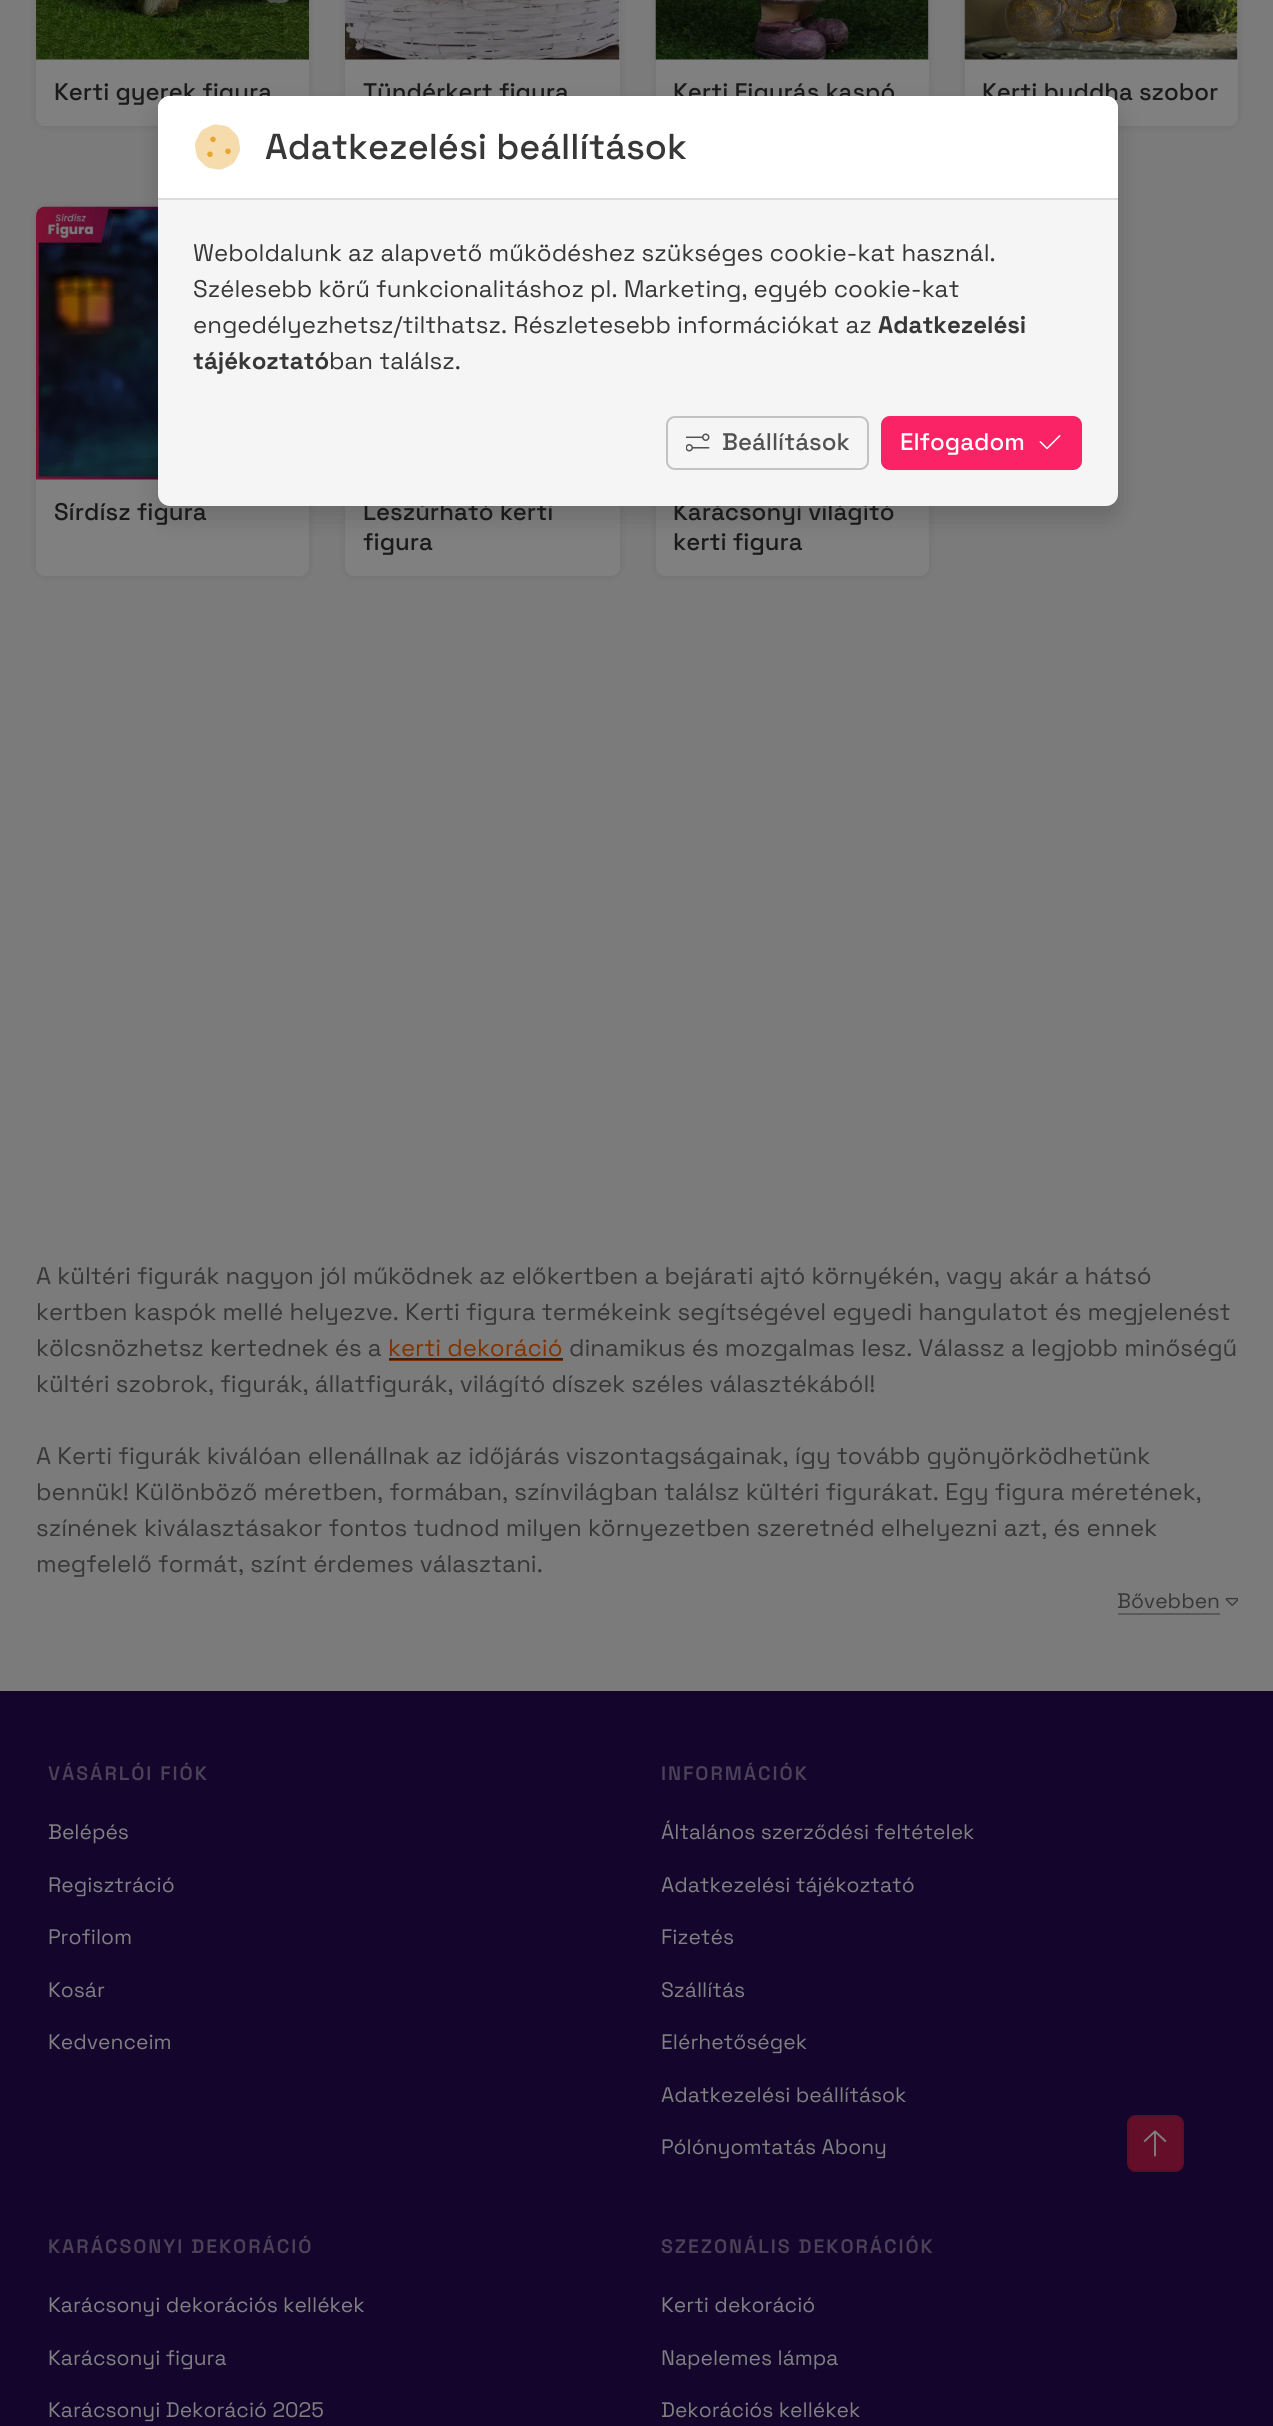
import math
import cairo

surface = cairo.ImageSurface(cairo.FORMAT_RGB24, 1273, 2426)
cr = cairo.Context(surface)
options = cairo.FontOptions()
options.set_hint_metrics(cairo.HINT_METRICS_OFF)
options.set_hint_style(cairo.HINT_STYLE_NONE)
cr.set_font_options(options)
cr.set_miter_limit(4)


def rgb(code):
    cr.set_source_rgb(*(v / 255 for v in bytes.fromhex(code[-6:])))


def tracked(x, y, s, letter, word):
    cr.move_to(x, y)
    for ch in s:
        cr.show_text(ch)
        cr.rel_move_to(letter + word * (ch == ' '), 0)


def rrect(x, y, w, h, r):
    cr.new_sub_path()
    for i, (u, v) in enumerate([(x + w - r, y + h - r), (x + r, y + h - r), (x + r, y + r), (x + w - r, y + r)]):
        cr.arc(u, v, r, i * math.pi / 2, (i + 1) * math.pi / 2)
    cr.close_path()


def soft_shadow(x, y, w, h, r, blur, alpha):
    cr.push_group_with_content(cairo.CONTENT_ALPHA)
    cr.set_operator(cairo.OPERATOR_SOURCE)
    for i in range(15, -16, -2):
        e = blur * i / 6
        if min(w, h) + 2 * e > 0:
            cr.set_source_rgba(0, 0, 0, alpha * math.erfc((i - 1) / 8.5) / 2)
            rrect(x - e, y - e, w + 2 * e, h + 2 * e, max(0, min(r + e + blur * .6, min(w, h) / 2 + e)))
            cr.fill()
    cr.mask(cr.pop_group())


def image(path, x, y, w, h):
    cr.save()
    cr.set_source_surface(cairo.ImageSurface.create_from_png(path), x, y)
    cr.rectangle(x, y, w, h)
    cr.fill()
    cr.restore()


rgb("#7b7b7b")
cr.paint()
rgb("#000000")
soft_shadow(36, -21, 273, 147, 9, 4, 0.1)
rgb("#808080")
rrect(36, -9, 273, 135, 9)
cr.fill()
image("img/1.png", 36, 0, 273, 60)
rgb("#000000")
soft_shadow(345, -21, 275, 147, 9, 4, 0.1)
rgb("#808080")
cr.rectangle(345, 0, 275, 96)
cr.fill()
image("img/2.png", 345, 0, 275, 60)
rgb("#000000")
soft_shadow(656, -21, 273, 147, 9, 4, 0.1)
rgb("#808080")
cr.rectangle(656, 0, 273, 96)
cr.fill()
image("img/3.png", 655, 0, 274, 60)
rgb("#000000")
soft_shadow(965, -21, 273, 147, 9, 4, 0.1)
rgb("#808080")
rrect(965, -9, 273, 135, 9)
cr.fill()
image("img/4.png", 964, 0, 274, 60)
rgb("#000000")
soft_shadow(36, 207, 273, 369, 9, 4, 0.1)
rgb("#808080")
rrect(36, 207, 273, 369, 9)
cr.fill()
image("img/5.png", 36, 206, 122, 274)
rgb("#000000")
soft_shadow(345, 207, 275, 369, 9, 4, 0.1)
rgb("#808080")
rrect(345, 207, 275, 369, 9)
cr.fill()
rgb("#000000")
soft_shadow(656, 207, 273, 369, 9, 4, 0.1)
rgb("#808080")
rrect(656, 207, 273, 369, 9)
cr.fill()
for x, y, w, h, color in [
    (389, 1360, 174, 1, "#803300"),
    (389, 1358, 174, 2, "#382112"),
    (1118, 1613, 102, 2, "#595959"),
]:
    rgb(color)
    cr.rectangle(x, y, w, h)
    cr.fill()
image("img/6.png", 1225, 1597, 13, 9)
rgb("#000000")
soft_shadow(158, 108, 960, 410, 12, 12, 0.15)
rgb("#13052c")
cr.rectangle(0, 1691, 1273, 735)
cr.fill()
rgb("#640e29")
rrect(1128, 2116, 55, 55, 8)
cr.fill_preserve()
rgb("#5e0d27")
cr.stroke()
image("img/10.png", 1143, 2130, 24, 27)
cr.select_font_face("Space Grotesk Medium")
cr.set_font_size(24)
rgb("#1a1a1a")
for x, y, s in [
    (54, 100, "Kerti gyerek figura"),
    (363, 100, "Tündérkert figura"),
    (673, 100, "Kerti Figurás kaspó"),
    (982, 100, "Kerti buddha szobor"),
    (54, 520, "Sírdísz figura"),
    (363, 520, "Leszúrható kerti"),
    (363, 550, "figura"),
    (673, 520, "Karácsonyi világító"),
    (673, 550, "kerti figura"),
]:
    cr.move_to(x, y)
    cr.show_text(s)
cr.select_font_face("Space Grotesk")
rgb("#373737")
for x, y, s in [
    (36, 1284, "A kültéri figurák nagyon jól működnek az előkertben a bejárati ajtó környékén, vagy akár a hátsó"),
    (36, 1320, "kertben kaspók mellé helyezve. Kerti figura termékeink segítségével egyedi hangulatot és megjelenést"),
    (36, 1356, "kölcsnözhetsz kertednek és a"),
]:
    cr.move_to(x, y)
    cr.show_text(s)
rgb("#803300")
cr.move_to(388, 1356)
cr.show_text("kerti dekoráció")
rgb("#373737")
for x, y, s in [
    (569, 1356, "dinamikus és mozgalmas lesz. Válassz a legjobb minőségű"),
    (36, 1392, "kültéri szobrok, figurák, állatfigurák, világító díszek széles választékából!"),
    (36, 1464, "A Kerti figurák kiválóan ellenállnak az időjárás viszontagságainak, így tovább gyönyörködhetünk"),
    (36, 1500, "bennük! Különböző méretben, formában, színvilágban találsz kültéri figurákat. Egy figura méretének,"),
    (36, 1536, "színének kiválasztásakor fontos tudnod milyen környezetben szeretnéd elhelyezni azt, és ennek"),
    (36, 1572, "megfelelő formát, színt érdemes választani."),
]:
    cr.move_to(x, y)
    cr.show_text(s)
cr.set_font_size(21)
cr.move_to(1117, 1608)
cr.show_text("Bővebben")
rgb("#f5f5f5")
rrect(158, 96, 960, 410, 12)
cr.fill()
rgb("#ffffff")
cr.new_path()
cr.move_to(170, 96)
cr.line_to(1106, 96)
cr.curve_to(1112.5, 96, 1118, 101.5, 1118, 108)
cr.line_to(1118, 200)
cr.line_to(158, 200)
cr.line_to(158, 108)
cr.curve_to(158, 101.5, 163.5, 96, 170, 96)
cr.close_path()
cr.fill()
rgb("#dbdbdb")
cr.rectangle(158, 198, 960, 2)
cr.fill()
image("img/7.png", 195, 124, 45, 46)
cr.select_font_face("Space Grotesk Medium")
cr.set_font_size(36)
rgb("#373737")
cr.move_to(265, 159)
cr.show_text("Adatkezelési beállítások")
cr.select_font_face("Space Grotesk")
cr.set_font_size(24)
for x, y, s in [
    (193, 261, "Weboldalunk az alapvető működéshez szükséges cookie-kat használ."),
    (193, 297, "Szélesebb körű funkcionalitáshoz pl. Marketing, egyéb cookie-kat"),
    (193, 333, "engedélyezhetsz/tilthatsz. Részletesebb információkat az"),
]:
    cr.move_to(x, y)
    cr.show_text(s)
cr.select_font_face("Space Grotesk", cairo.FONT_SLANT_NORMAL, cairo.FONT_WEIGHT_BOLD)
cr.move_to(878, 333)
cr.show_text("Adatkezelési")
cr.move_to(193, 369)
cr.show_text("tájékoztató")
cr.select_font_face("Space Grotesk")
cr.move_to(329, 369)
cr.show_text("ban találsz.")
rrect(667, 417, 201, 52, 8)
rgb("#c2c2c2")
cr.stroke()
image("img/8.png", 686, 433, 24, 19)
cr.select_font_face("Space Grotesk Medium")
rgb("#525252")
cr.move_to(722, 450)
cr.show_text("Beállítások")
rgb("#f92366")
rrect(882, 417, 199, 52, 8)
cr.fill_preserve()
cr.stroke()
rgb("#ffffff")
cr.move_to(900, 450)
cr.show_text("Elfogadom")
image("img/9.png", 1039, 435, 22, 15)
cr.select_font_face("Space Grotesk SemiBold")
cr.set_font_size(19.5)
rgb("#494256")
tracked(48, 1780, "VÁSÁRLÓI FIÓK", 1.95, 0)
cr.select_font_face("Space Grotesk")
cr.set_font_size(21)
rgb("#808080")
for x, y, s in [
    (48, 1839, "Belépés"),
    (48, 1892, "Regisztráció"),
    (48, 1944, "Profilom"),
    (48, 1997, "Kosár"),
    (48, 2049, "Kedvenceim"),
]:
    cr.move_to(x, y)
    cr.show_text(s)
cr.select_font_face("Space Grotesk SemiBold")
cr.set_font_size(19.5)
rgb("#494256")
tracked(661, 1780, "INFORMÁCIÓK", 1.95, 0)
cr.select_font_face("Space Grotesk")
cr.set_font_size(21)
rgb("#808080")
for x, y, s in [
    (661, 1839, "Általános szerződési feltételek"),
    (661, 1892, "Adatkezelési tájékoztató"),
    (661, 1944, "Fizetés"),
    (661, 1997, "Szállítás"),
    (661, 2049, "Elérhetőségek"),
    (661, 2102, "Adatkezelési beállítások"),
    (661, 2154, "Pólónyomtatás Abony"),
]:
    cr.move_to(x, y)
    cr.show_text(s)
cr.select_font_face("Space Grotesk SemiBold")
cr.set_font_size(19.5)
rgb("#494256")
tracked(48, 2253, "KARÁCSONYI DEKORÁCIÓ", 1.95, 0)
cr.select_font_face("Space Grotesk")
cr.set_font_size(21)
rgb("#808080")
for x, y, s in [
    (48, 2312, "Karácsonyi dekorációs kellékek"),
    (48, 2365, "Karácsonyi figura"),
    (48, 2417, "Karácsonyi Dekoráció 2025"),
]:
    cr.move_to(x, y)
    cr.show_text(s)
cr.select_font_face("Space Grotesk SemiBold")
cr.set_font_size(19.5)
rgb("#494256")
tracked(661, 2253, "SZEZONÁLIS DEKORÁCIÓK", 1.95, 0)
cr.select_font_face("Space Grotesk")
cr.set_font_size(21)
rgb("#808080")
for x, y, s in [
    (661, 2312, "Kerti dekoráció"),
    (661, 2365, "Napelemes lámpa"),
    (661, 2417, "Dekorációs kellékek"),
]:
    cr.move_to(x, y)
    cr.show_text(s)
surface.write_to_png("page.png")
